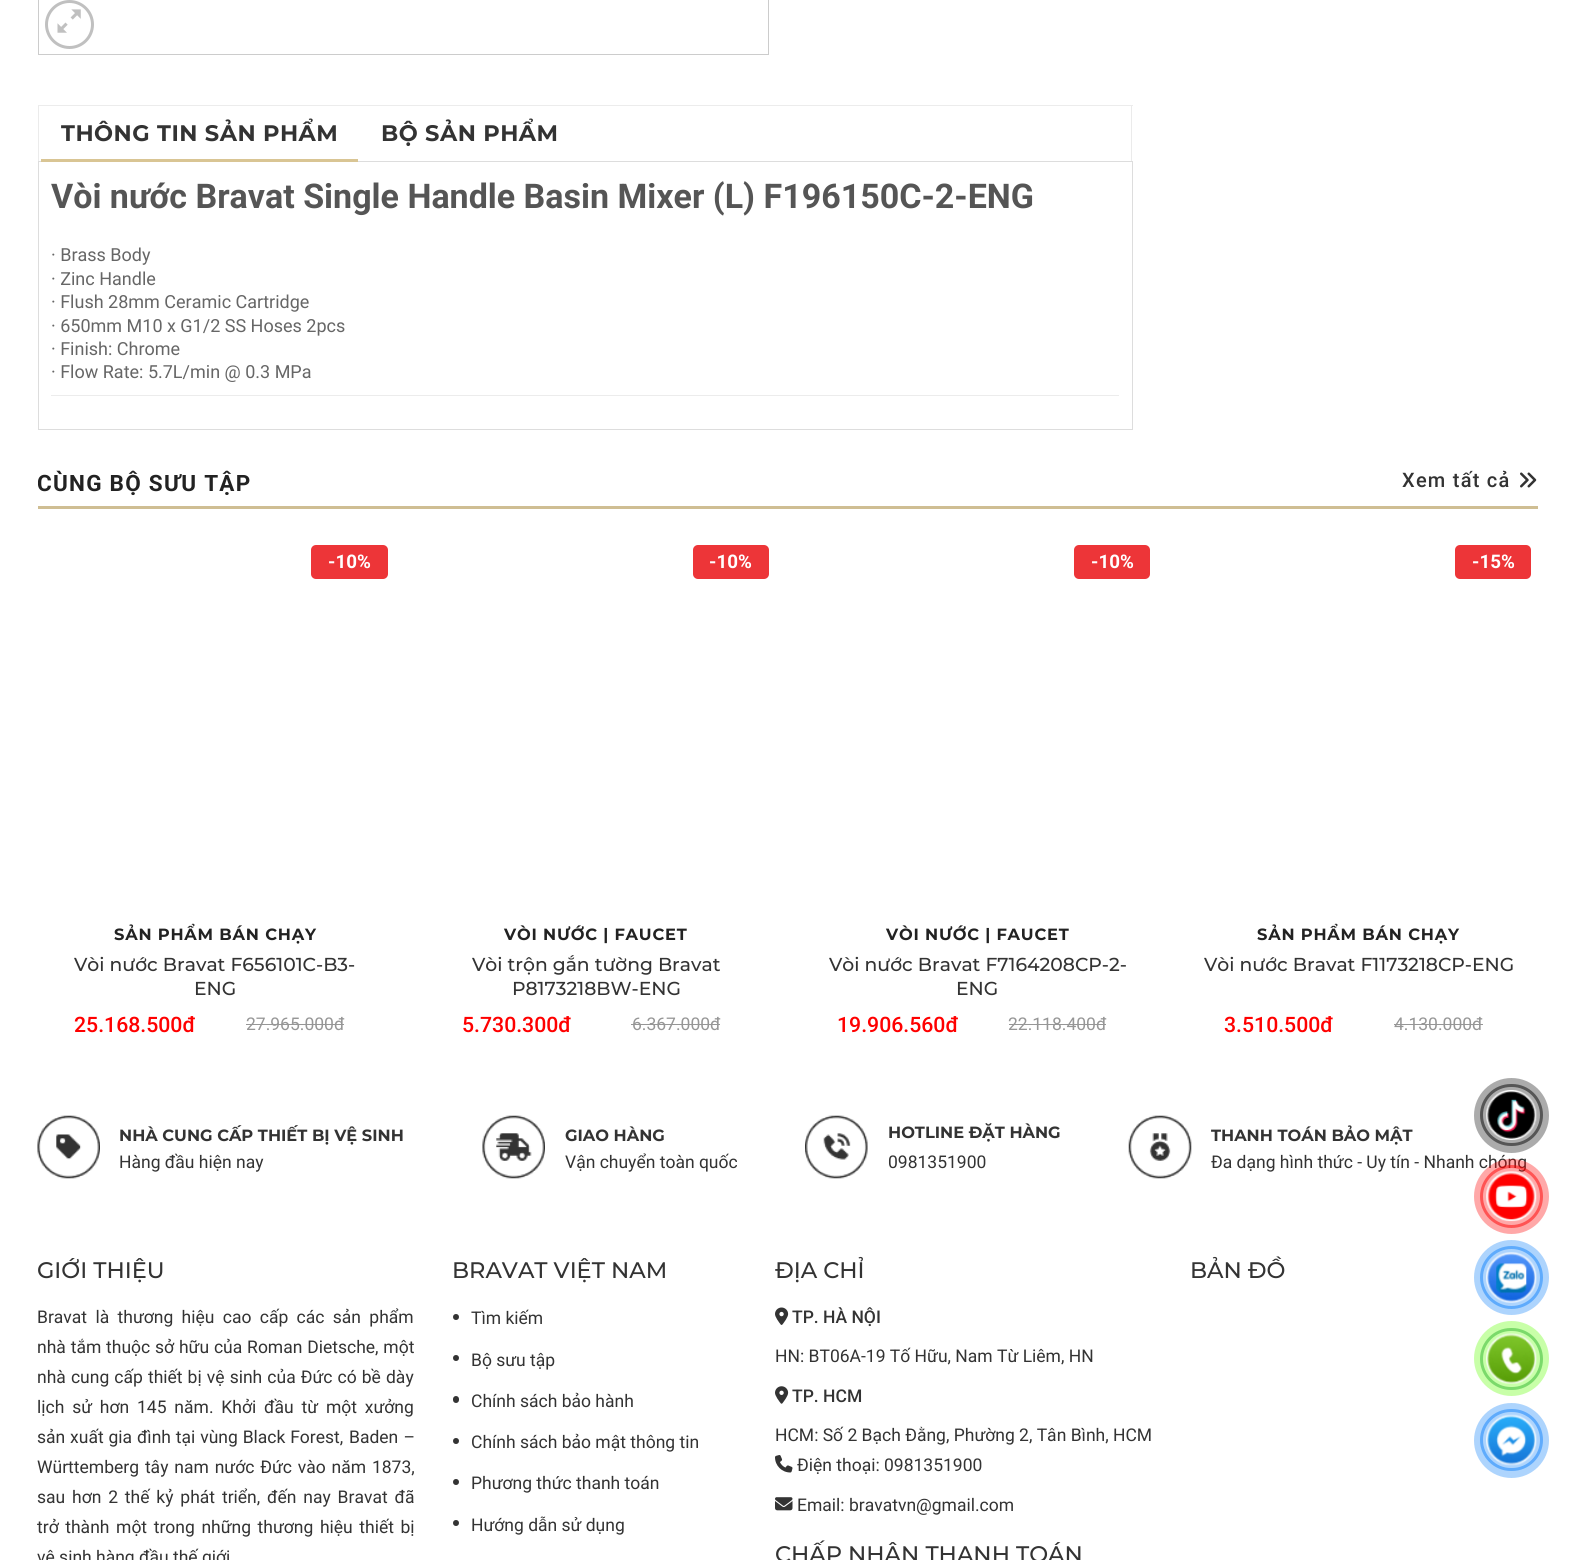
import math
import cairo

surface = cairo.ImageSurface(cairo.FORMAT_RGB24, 1573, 1560)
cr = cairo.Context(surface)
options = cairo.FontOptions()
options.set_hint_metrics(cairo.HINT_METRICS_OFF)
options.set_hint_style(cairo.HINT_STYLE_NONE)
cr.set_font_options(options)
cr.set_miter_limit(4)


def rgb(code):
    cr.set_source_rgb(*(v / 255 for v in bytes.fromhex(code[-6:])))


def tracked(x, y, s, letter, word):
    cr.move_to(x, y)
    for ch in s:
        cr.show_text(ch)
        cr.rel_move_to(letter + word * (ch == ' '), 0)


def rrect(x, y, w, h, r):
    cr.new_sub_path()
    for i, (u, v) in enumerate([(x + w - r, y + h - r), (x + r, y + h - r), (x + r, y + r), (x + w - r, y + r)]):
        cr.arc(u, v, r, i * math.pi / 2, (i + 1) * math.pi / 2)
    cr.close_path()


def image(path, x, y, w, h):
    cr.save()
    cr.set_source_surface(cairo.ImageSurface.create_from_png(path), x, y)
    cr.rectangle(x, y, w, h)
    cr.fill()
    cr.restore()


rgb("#ffffff")
cr.paint()
cr.rectangle(38.5, -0.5, 730, 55)
rgb("#cccccc")
cr.set_line_width(1)
cr.stroke()
cr.arc(69.5, 24.5, 23, 0, 2 * math.pi)
rgb("#c0c0c0")
cr.set_line_width(3)
cr.stroke()
image("img/1.png", 57, 9, 24, 24)
for x, y, w, h, color in [
    (38, 105, 1095, 1, "#ececec"),
    (1131, 106, 1, 55, "#ebebeb"),
    (38, 106, 1, 55, "#ebebeb"),
]:
    rgb(color)
    cr.rectangle(x, y, w, h)
    cr.fill()
cr.rectangle(38.5, 161.5, 1094, 268)
rgb("#dddddd")
cr.set_line_width(1)
cr.stroke()
rgb("#d9c594")
cr.rectangle(41, 159, 317, 3)
cr.fill()
rgb("#ececec")
cr.rectangle(51, 395, 1068, 1)
cr.fill()
image("img/2.png", 1520, 472, 17, 16)
rgb("#cfbe93")
cr.rectangle(38, 506, 1500, 3)
cr.fill()
rgb("#ed3538")
rrect(311, 545, 77, 34, 5)
cr.fill()
rgb("#969696")
cr.rectangle(246, 1024, 98, 1)
cr.fill()
rgb("#ed3538")
rrect(693, 545, 76, 34, 5)
cr.fill()
rgb("#969696")
cr.rectangle(631, 1024, 89, 1)
cr.fill()
rgb("#ed3538")
rrect(1074, 545, 76, 34, 5)
cr.fill()
rgb("#969696")
cr.rectangle(1009, 1024, 97, 1)
cr.fill()
rgb("#ed3538")
rrect(1455, 545, 76, 34, 5)
cr.fill()
rgb("#969696")
cr.rectangle(1394, 1024, 89, 1)
cr.fill()
rrect(1481.5, 1085.5, 60, 59, 29.5)
rgb("#808080")
cr.set_line_width(3)
cr.stroke()
cr.set_source_rgba(0, 0, 0, 0.33)
cr.arc(1511.5, 1115.5, 37.5, 0, 2 * math.pi)
cr.fill()
image("img/3.png", 1486, 1090, 51, 50)
cr.arc(1511.5, 1277.5, 30, 0, 2 * math.pi)
rgb("#88c1fe")
cr.stroke()
cr.set_source_rgba(0.067, 0.51, 0.988, 0.34)
cr.arc(1511.5, 1277.5, 37.5, 0, 2 * math.pi)
cr.fill()
image("img/5.png", 1486, 1252, 51, 51)
rrect(1481.5, 1329.5, 60, 59, 29.5)
rgb("#8ac7a2")
cr.stroke()
cr.set_source_rgba(0.369, 1, 0, 0.34)
cr.arc(1511.5, 1358.5, 37.5, 0, 2 * math.pi)
cr.fill()
image("img/6.png", 1486, 1333, 51, 51)
rrect(1481.5, 1410.5, 60, 59, 29.5)
rgb("#88c1fe")
cr.stroke()
cr.set_source_rgba(0.067, 0.51, 0.988, 0.34)
cr.arc(1511.5, 1440.5, 37.5, 0, 2 * math.pi)
cr.fill()
image("img/7.png", 1486, 1414, 51, 52)
image("img/8.png", 37, 1115, 63, 64)
image("img/9.png", 482, 1115, 63, 64)
image("img/10.png", 805, 1115, 63, 64)
image("img/11.png", 1128, 1115, 64, 64)
rgb("#333333")
cr.arc(456, 1317, 3, 0, 2 * math.pi)
cr.fill()
cr.arc(456, 1358, 3, 0, 2 * math.pi)
cr.fill()
rrect(453, 1396, 6, 7, 3)
cr.fill()
cr.arc(456, 1441, 3, 0, 2 * math.pi)
cr.fill()
cr.arc(456, 1482, 3, 0, 2 * math.pi)
cr.fill()
cr.arc(456, 1523, 3, 0, 2 * math.pi)
cr.fill()
image("img/12.png", 775, 1307, 14, 18)
image("img/13.png", 775, 1386, 14, 18)
image("img/14.png", 775, 1455, 18, 18)
image("img/15.png", 775, 1497, 18, 14)
cr.select_font_face("Montserrat", cairo.FONT_SLANT_NORMAL, cairo.FONT_WEIGHT_BOLD)
cr.set_font_size(22.5)
tracked(61, 141, "THÔNG TIN SẢN PHẨM", 0.5, 0)
tracked(381, 141, "BỘ SẢN PHẨM", 0.5, 0)
cr.select_font_face("Roboto", cairo.FONT_SLANT_NORMAL, cairo.FONT_WEIGHT_BOLD)
cr.set_font_size(34)
rgb("#555555")
cr.move_to(51, 208)
cr.show_text("Vòi nước Bravat Single Handle Basin Mixer (L) F196150C-2-ENG")
cr.select_font_face("Roboto")
cr.set_font_size(18)
rgb("#666666")
for x, y, s in [
    (51, 261, "· Brass Body"),
    (51, 285, "· Zinc Handle"),
    (51, 308, "· Flush 28mm Ceramic Cartridge"),
    (51, 332, "· 650mm M10 x G1/2 SS Hoses 2pcs"),
    (51, 355, "· Finish: Chrome"),
    (51, 378, "· Flow Rate: 5.7L/min @ 0.3 MPa"),
]:
    cr.move_to(x, y)
    cr.show_text(s)
cr.save()
cr.rectangle(38, 456, 1500, 635)
cr.clip()
cr.select_font_face("Roboto", cairo.FONT_SLANT_NORMAL, cairo.FONT_WEIGHT_BOLD)
cr.set_font_size(22.5)
rgb("#222222")
tracked(37, 491, "CÙNG BỘ SƯU TẬP", 1.25, 0)
cr.restore()
cr.select_font_face("Roboto Medium")
cr.set_font_size(20)
rgb("#333333")
tracked(1402, 487, "Xem tất cả", 1.25, 0)
cr.select_font_face("Roboto", cairo.FONT_SLANT_NORMAL, cairo.FONT_WEIGHT_BOLD)
cr.set_font_size(18.75)
rgb("#ffffff")
cr.move_to(328, 568)
cr.show_text("-10%")
cr.select_font_face("Montserrat", cairo.FONT_SLANT_NORMAL, cairo.FONT_WEIGHT_BOLD)
cr.set_font_size(16.25)
rgb("#222222")
tracked(114, 940, "SẢN PHẨM BÁN CHẠY", 0.8, 0)
cr.select_font_face("Montserrat Medium")
cr.set_font_size(18.75)
rgb("#333333")
cr.move_to(74, 971)
cr.show_text("Vòi nước Bravat F656101C-B3-")
cr.move_to(194, 995)
cr.show_text("ENG")
cr.select_font_face("Roboto Medium")
cr.set_font_size(21.25)
rgb("#ff0000")
cr.move_to(74, 1032)
cr.show_text("25.168.500đ")
cr.select_font_face("Roboto")
cr.set_font_size(17.5)
rgb("#969696")
cr.move_to(246, 1030)
cr.show_text("27.965.000đ")
cr.select_font_face("Roboto", cairo.FONT_SLANT_NORMAL, cairo.FONT_WEIGHT_BOLD)
cr.set_font_size(18.75)
rgb("#ffffff")
cr.move_to(709, 568)
cr.show_text("-10%")
cr.select_font_face("Montserrat", cairo.FONT_SLANT_NORMAL, cairo.FONT_WEIGHT_BOLD)
cr.set_font_size(16.25)
rgb("#222222")
tracked(504, 940, "VÒI NƯỚC | FAUCET", 0.8, 0)
cr.select_font_face("Montserrat Medium")
cr.set_font_size(18.75)
rgb("#333333")
cr.move_to(472, 971)
cr.show_text("Vòi trộn gắn tường Bravat")
cr.move_to(512, 995)
cr.show_text("P8173218BW-ENG")
cr.select_font_face("Roboto Medium")
cr.set_font_size(21.25)
rgb("#ff0000")
cr.move_to(462, 1032)
cr.show_text("5.730.300đ")
cr.select_font_face("Roboto")
cr.set_font_size(17.5)
rgb("#969696")
cr.move_to(632, 1030)
cr.show_text("6.367.000đ")
cr.select_font_face("Roboto", cairo.FONT_SLANT_NORMAL, cairo.FONT_WEIGHT_BOLD)
cr.set_font_size(18.75)
rgb("#ffffff")
cr.move_to(1091, 568)
cr.show_text("-10%")
cr.select_font_face("Montserrat", cairo.FONT_SLANT_NORMAL, cairo.FONT_WEIGHT_BOLD)
cr.set_font_size(16.25)
rgb("#222222")
tracked(886, 940, "VÒI NƯỚC | FAUCET", 0.8, 0)
cr.select_font_face("Montserrat Medium")
cr.set_font_size(18.75)
rgb("#333333")
cr.move_to(829, 971)
cr.show_text("Vòi nước Bravat F7164208CP-2-")
cr.move_to(956, 995)
cr.show_text("ENG")
cr.select_font_face("Roboto Medium")
cr.set_font_size(21.25)
rgb("#ff0000")
cr.move_to(837, 1032)
cr.show_text("19.906.560đ")
cr.select_font_face("Roboto")
cr.set_font_size(17.5)
rgb("#969696")
cr.move_to(1008, 1030)
cr.show_text("22.118.400đ")
cr.select_font_face("Roboto", cairo.FONT_SLANT_NORMAL, cairo.FONT_WEIGHT_BOLD)
cr.set_font_size(18.75)
rgb("#ffffff")
cr.move_to(1472, 568)
cr.show_text("-15%")
cr.select_font_face("Montserrat", cairo.FONT_SLANT_NORMAL, cairo.FONT_WEIGHT_BOLD)
cr.set_font_size(16.25)
rgb("#222222")
tracked(1257, 940, "SẢN PHẨM BÁN CHẠY", 0.8, 0)
cr.select_font_face("Montserrat Medium")
cr.set_font_size(18.75)
rgb("#333333")
cr.move_to(1204, 971)
cr.show_text("Vòi nước Bravat F1173218CP-ENG")
cr.select_font_face("Roboto Medium")
cr.set_font_size(21.25)
rgb("#ff0000")
cr.move_to(1224, 1032)
cr.show_text("3.510.500đ")
cr.select_font_face("Roboto")
cr.set_font_size(17.5)
rgb("#969696")
cr.move_to(1394, 1030)
cr.show_text("4.130.000đ")
cr.select_font_face("Montserrat", cairo.FONT_SLANT_NORMAL, cairo.FONT_WEIGHT_BOLD)
cr.set_font_size(16.25)
rgb("#333333")
cr.move_to(119, 1141)
cr.show_text("NHÀ CUNG CẤP THIẾT BỊ VỆ SINH")
cr.select_font_face("Roboto")
cr.set_font_size(17.5)
cr.move_to(119, 1168)
cr.show_text("Hàng đầu hiện nay")
cr.select_font_face("Montserrat", cairo.FONT_SLANT_NORMAL, cairo.FONT_WEIGHT_BOLD)
cr.set_font_size(16.25)
cr.move_to(565, 1141)
cr.show_text("GIAO HÀNG")
cr.select_font_face("Roboto")
cr.set_font_size(17.5)
cr.move_to(565, 1168)
cr.show_text("Vận chuyển toàn quốc")
cr.select_font_face("Montserrat", cairo.FONT_SLANT_NORMAL, cairo.FONT_WEIGHT_BOLD)
cr.set_font_size(16.25)
cr.move_to(888, 1138)
cr.show_text("HOTLINE ĐẶT HÀNG")
cr.select_font_face("Roboto")
cr.set_font_size(17.5)
cr.move_to(888, 1168)
cr.show_text("0981351900")
cr.select_font_face("Montserrat", cairo.FONT_SLANT_NORMAL, cairo.FONT_WEIGHT_BOLD)
cr.set_font_size(16.25)
cr.move_to(1211, 1141)
cr.show_text("THANH TOÁN BẢO MẬT")
cr.select_font_face("Roboto")
cr.set_font_size(17.5)
cr.move_to(1211, 1168)
cr.show_text("Đa dạng hình thức - Uy tín - Nhanh chóng")
cr.new_path()
cr.arc(1511.5, 1196.5, 30, 0, 2 * math.pi)
cr.set_source_rgba(1, 0, 0, 0.5)
cr.stroke()
cr.set_source_rgba(1, 0, 0, 0.34)
cr.arc(1511.5, 1196.5, 37.5, 0, 2 * math.pi)
cr.fill()
image("img/4.png", 1486, 1171, 51, 51)
cr.select_font_face("Montserrat Medium")
cr.set_font_size(22.5)
rgb("#333333")
cr.move_to(37, 1278)
cr.show_text("GIỚI THIỆU")
cr.select_font_face("Roboto")
cr.set_font_size(17.5)
tracked(37, 1323, "Bravat là thương hiệu cao cấp các sản phẩm", 0, 4)
tracked(37, 1353, "nhà tắm thuộc sở hữu của Roman Dietsche, một", 0, 0.5)
tracked(37, 1383, "nhà cung cấp thiết bị vệ sinh của Đức có bề dày", 0, 0.75)
tracked(37, 1413, "lịch sử hơn 145 năm. Khởi đầu từ một xưởng", 0, 3.5)
tracked(37, 1443, "sản xuất gia đình tại vùng Black Forest,", 0, 0.5)
tracked(349, 1443, "Baden –", 0, 1)
tracked(37, 1473, "Württemberg tây nam nước Đức vào năm 1873,", 0, 1.5)
tracked(37, 1503, "sau hơn 2 thế kỷ phát triển, đến nay Bravat đã", 0, 2.5)
tracked(37, 1533, "trở thành một trong những thương hiệu thiết bị", 0, 2.25)
cr.move_to(37, 1563)
cr.show_text("vệ sinh hàng đầu thế giới")
cr.select_font_face("Montserrat Medium")
cr.set_font_size(22.5)
cr.move_to(452, 1278)
cr.show_text("BRAVAT VIỆT NAM")
cr.select_font_face("Roboto")
cr.set_font_size(17.5)
for x, y, s in [
    (471, 1324, "Tìm kiếm"),
    (471, 1366, "Bộ sưu tập"),
    (471, 1407, "Chính sách bảo hành"),
    (471, 1448, "Chính sách bảo mật thông tin"),
    (471, 1489, "Phương thức thanh toán"),
    (471, 1531, "Hướng dẫn sử dụng"),
]:
    cr.move_to(x, y)
    cr.show_text(s)
cr.select_font_face("Montserrat Medium")
cr.set_font_size(22.5)
cr.move_to(775, 1278)
cr.show_text("ĐỊA CHỈ")
cr.select_font_face("Roboto Medium")
cr.set_font_size(17.5)
cr.move_to(792, 1323)
cr.show_text("TP. HÀ NỘI")
cr.select_font_face("Roboto")
cr.move_to(775, 1362)
cr.show_text("HN: BT06A-19 Tố Hữu, Nam Từ Liêm, HN")
cr.select_font_face("Roboto Medium")
cr.move_to(792, 1402)
cr.show_text("TP. HCM")
cr.select_font_face("Roboto")
for x, y, s in [
    (775, 1441, "HCM: Số 2 Bạch Đằng, Phường 2, Tân Bình, HCM"),
    (797, 1471, "Điện thoại: 0981351900"),
    (797, 1511, "Email: bravatvn@gmail.com"),
]:
    cr.move_to(x, y)
    cr.show_text(s)
cr.select_font_face("Montserrat Medium")
cr.set_font_size(22.5)
cr.move_to(775, 1562)
cr.show_text("CHẤP NHẬN THANH TOÁN")
cr.move_to(1190, 1278)
cr.show_text("BẢN ĐỒ")
surface.write_to_png("page.png")
